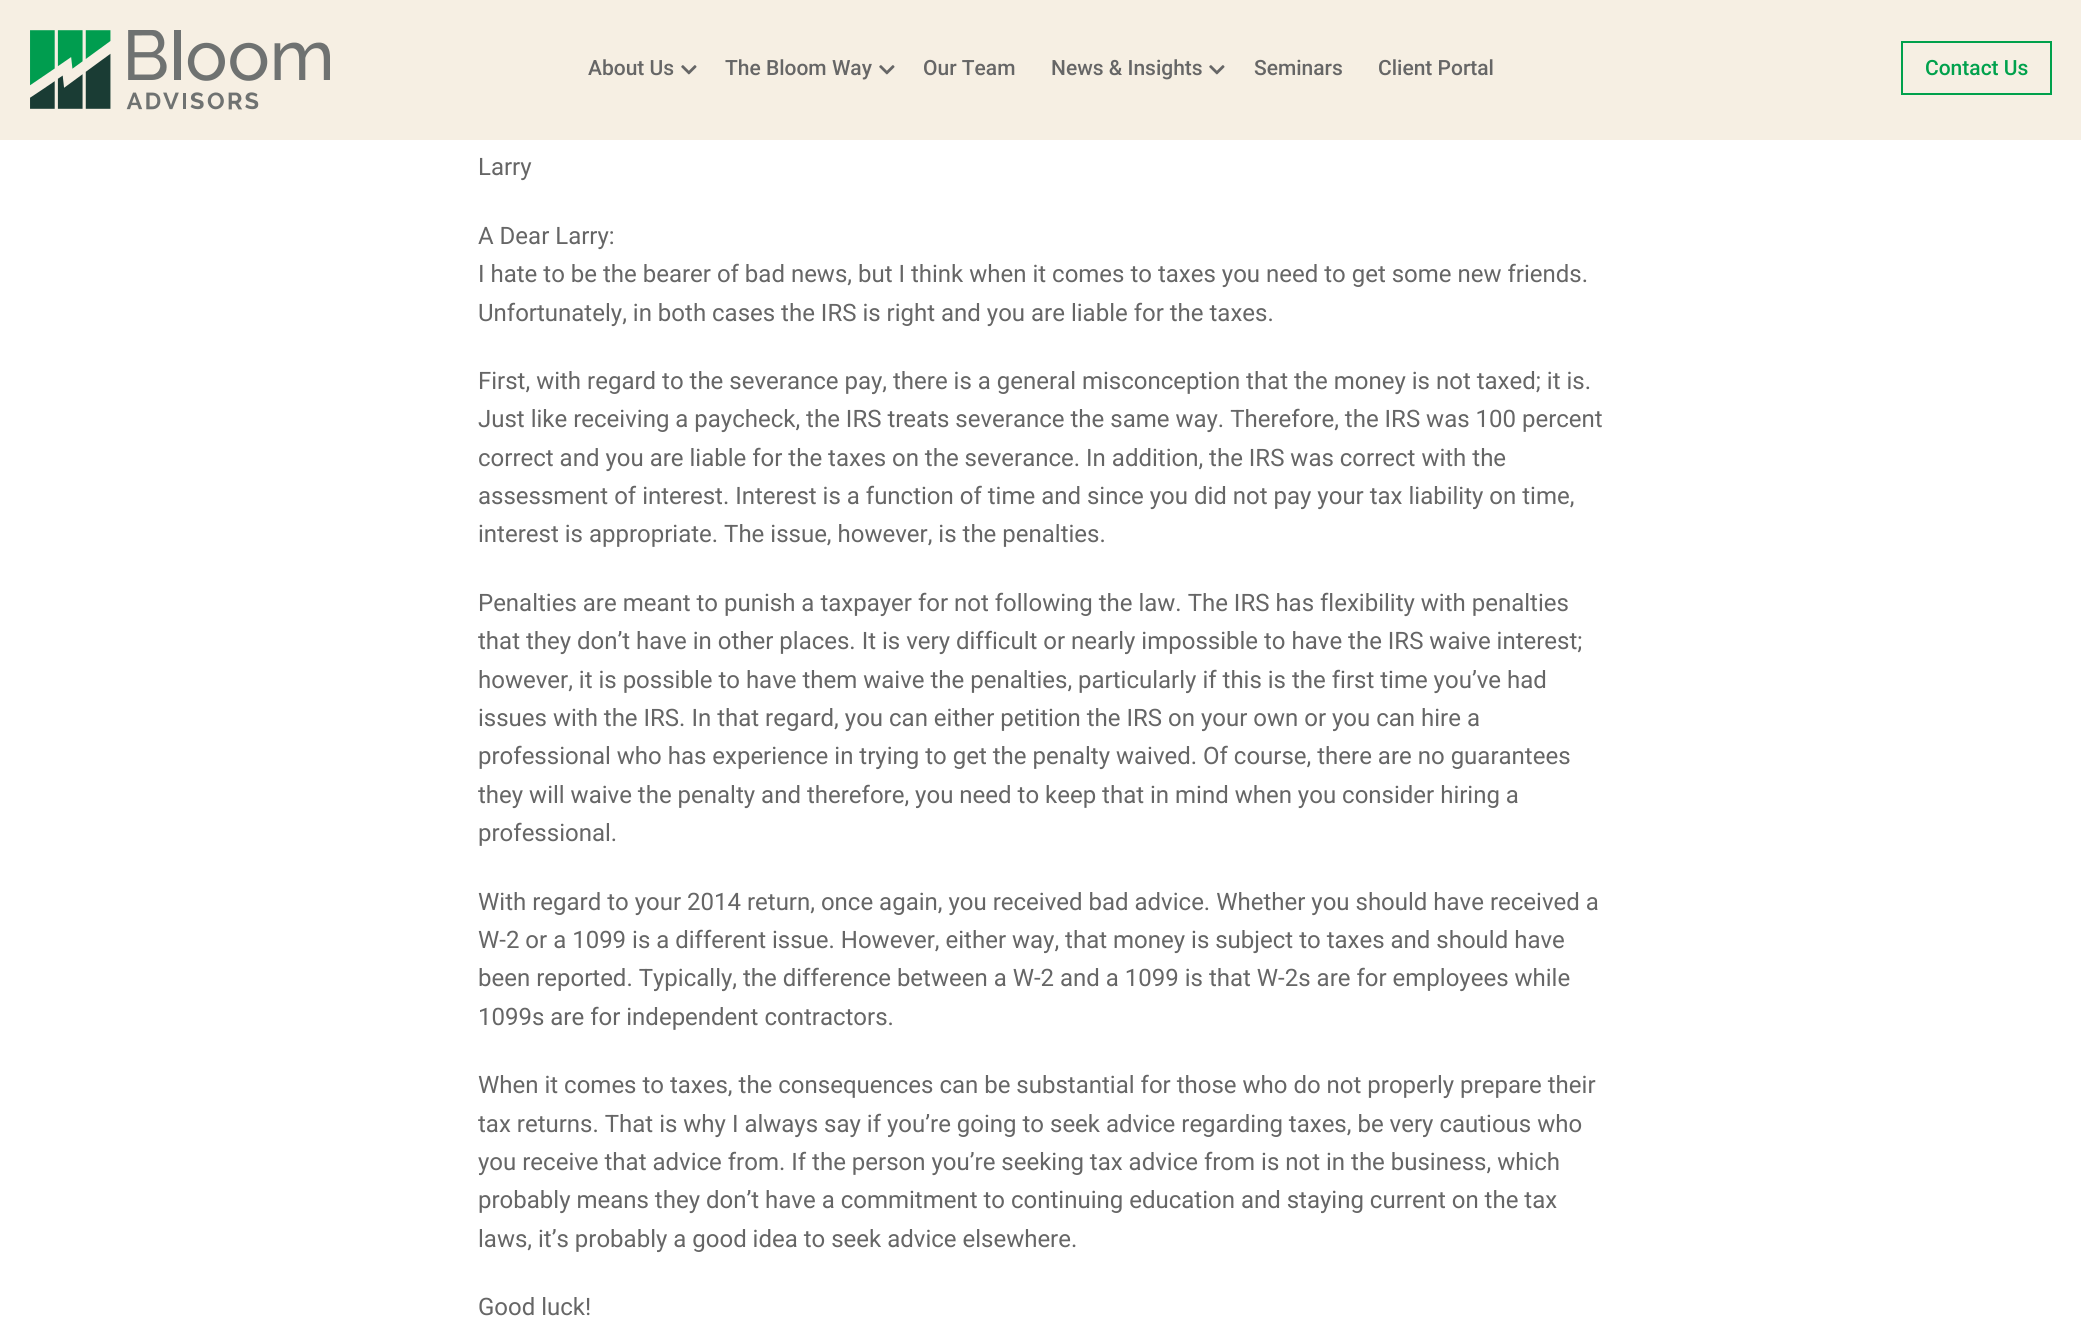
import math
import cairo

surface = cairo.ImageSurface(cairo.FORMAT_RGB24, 2081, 1323)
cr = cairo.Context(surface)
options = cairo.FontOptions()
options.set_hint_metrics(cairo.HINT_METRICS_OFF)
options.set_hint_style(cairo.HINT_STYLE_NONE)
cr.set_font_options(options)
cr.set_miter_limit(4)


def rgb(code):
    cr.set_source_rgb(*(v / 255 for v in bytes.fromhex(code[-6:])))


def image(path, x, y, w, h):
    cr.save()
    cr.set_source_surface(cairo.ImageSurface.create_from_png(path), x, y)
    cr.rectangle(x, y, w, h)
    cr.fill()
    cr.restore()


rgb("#ffffff")
cr.paint()
rgb("#f6efe3")
cr.rectangle(0, 0, 2081, 140)
cr.fill()
image("img/1.png", 30, 30, 300, 80)
image("img/2.png", 681, 65, 16, 10)
image("img/2.png", 879, 65, 16, 10)
image("img/2.png", 1209, 65, 16, 10)
cr.rectangle(1902, 42, 149, 52)
rgb("#00a14c")
cr.stroke()
cr.select_font_face("Roboto Medium")
cr.set_font_size(21)
rgb("#666666")
for x, y, s in [
    (588, 75, "About Us"),
    (725, 75, "The Bloom Way"),
    (923, 75, "Our Team"),
    (1051, 75, "News & Insights"),
    (1254, 75, "Seminars"),
    (1378, 75, "Client Portal"),
]:
    cr.move_to(x, y)
    cr.show_text(s)
rgb("#00a14c")
cr.move_to(1925, 75)
cr.show_text("Contact Us")
cr.select_font_face("Roboto")
cr.set_font_size(24)
rgb("#666666")
for x, y, s in [
    (478, 175, "Larry"),
    (478, 244, "A Dear Larry:"),
    (478, 282, "I hate to be the bearer of bad news, but I think when it comes to taxes you need to get some new friends."),
    (478, 321, "Unfortunately, in both cases the IRS is right and you are liable for the taxes."),
    (478, 389, "First, with regard to the severance pay, there is a general misconception that the money is not taxed; it is."),
    (478, 427, "Just like receiving a paycheck, the IRS treats severance the same way. Therefore, the IRS was 100 percent"),
    (478, 466, "correct and you are liable for the taxes on the severance. In addition, the IRS was correct with the"),
    (478, 504, "assessment of interest. Interest is a function of time and since you did not pay your tax liability on time,"),
    (478, 542, "interest is appropriate. The issue, however, is the penalties."),
    (478, 611, "Penalties are meant to punish a taxpayer for not following the law. The IRS has flexibility with penalties"),
    (478, 649, "that they don’t have in other places. It is very difficult or nearly impossible to have the IRS waive interest;"),
    (478, 688, "however, it is possible to have them waive the penalties, particularly if this is the first time you’ve had"),
    (478, 726, "issues with the IRS. In that regard, you can either petition the IRS on your own or you can hire a"),
    (478, 764, "professional who has experience in trying to get the penalty waived. Of course, there are no guarantees"),
    (478, 803, "they will waive the penalty and therefore, you need to keep that in mind when you consider hiring a"),
    (478, 841, "professional."),
    (478, 910, "With regard to your 2014 return, once again, you received bad advice. Whether you should have received a"),
    (478, 948, "W-2 or a 1099 is a different issue. However, either way, that money is subject to taxes and should have"),
    (478, 986, "been reported. Typically, the difference between a W-2 and a 1099 is that W-2s are for employees while"),
    (478, 1025, "1099s are for independent contractors."),
    (478, 1093, "When it comes to taxes, the consequences can be substantial for those who do not properly prepare their"),
    (478, 1132, "tax returns. That is why I always say if you’re going to seek advice regarding taxes, be very cautious who"),
    (478, 1170, "you receive that advice from. If the person you’re seeking tax advice from is not in the business, which"),
    (478, 1208, "probably means they don’t have a commitment to continuing education and staying current on the tax"),
    (478, 1247, "laws, it’s probably a good idea to seek advice elsewhere."),
    (478, 1315, "Good luck!"),
]:
    cr.move_to(x, y)
    cr.show_text(s)
surface.write_to_png("page.png")
